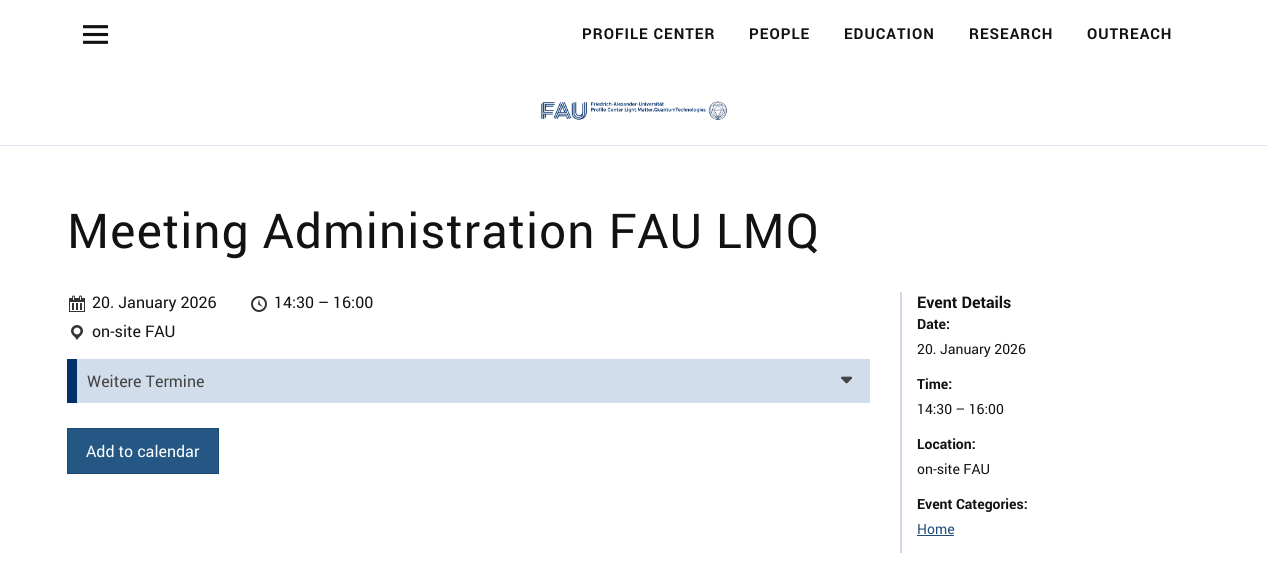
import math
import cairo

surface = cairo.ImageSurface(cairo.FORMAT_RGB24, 1267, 579)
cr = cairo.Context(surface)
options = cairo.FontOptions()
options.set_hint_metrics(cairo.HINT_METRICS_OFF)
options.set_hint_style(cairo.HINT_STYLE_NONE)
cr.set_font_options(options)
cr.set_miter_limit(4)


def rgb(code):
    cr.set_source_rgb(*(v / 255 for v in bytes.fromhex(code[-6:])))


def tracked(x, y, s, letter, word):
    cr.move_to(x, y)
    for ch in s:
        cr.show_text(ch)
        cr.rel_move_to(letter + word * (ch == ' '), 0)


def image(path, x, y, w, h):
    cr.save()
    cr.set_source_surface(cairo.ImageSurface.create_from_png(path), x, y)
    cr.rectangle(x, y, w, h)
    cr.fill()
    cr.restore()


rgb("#ffffff")
cr.paint()
rgb("#dde5f0")
cr.rectangle(0, 145, 1267, 1)
cr.fill()
image("img/1.png", 83, 25, 25, 19)
image("img/2.png", 541, 101, 186, 19)
image("img/3.png", 69, 295, 16, 17)
image("img/4.png", 251, 296, 16, 16)
image("img/5.png", 71, 325, 12, 16)
rgb("#d2ddeb")
cr.rectangle(77, 359, 793, 44)
cr.fill()
rgb("#04316a")
cr.rectangle(67, 359, 10, 44)
cr.fill()
image("img/6.png", 841, 376, 11, 8)
rgb("#245783")
cr.rectangle(67.5, 428.5, 151, 45)
cr.fill_preserve()
rgb("#1f4a6f")
cr.set_line_width(1)
cr.stroke()
rgb("#ced9e7")
cr.rectangle(900, 292, 2, 261)
cr.fill()
rgb("#1f4c7a")
cr.rectangle(917, 535, 37, 1)
cr.fill()
cr.select_font_face("Roboto", cairo.FONT_SLANT_NORMAL, cairo.FONT_WEIGHT_BOLD)
cr.set_font_size(15)
rgb("#121212")
for x, y, s in [
    (582, 39, "PROFILE CENTER"),
    (749, 39, "PEOPLE"),
    (844, 39, "EDUCATION"),
    (969, 39, "RESEARCH"),
    (1087, 39, "OUTREACH"),
]:
    tracked(x, y, s, 1, 0)
cr.select_font_face("Roboto")
cr.set_font_size(48)
tracked(67, 248, "Meeting Administration FAU LMQ", 0.95, 0)
cr.set_font_size(16)
for x, y, s in [
    (92, 308, "20. January 2026"),
    (274, 308, "14:30 – 16:00"),
    (92, 337, "on-site FAU"),
]:
    cr.move_to(x, y)
    cr.show_text(s)
rgb("#444444")
cr.move_to(87, 387)
cr.show_text("Weitere Termine")
rgb("#ffffff")
cr.move_to(86, 457)
cr.show_text("Add to calendar")
cr.select_font_face("Roboto", cairo.FONT_SLANT_NORMAL, cairo.FONT_WEIGHT_BOLD)
rgb("#121212")
cr.move_to(917, 308)
cr.show_text("Event Details")
cr.set_font_size(14)
cr.move_to(917, 329)
cr.show_text("Date:")
cr.select_font_face("Roboto")
cr.move_to(917, 354)
cr.show_text("20. January 2026")
cr.select_font_face("Roboto", cairo.FONT_SLANT_NORMAL, cairo.FONT_WEIGHT_BOLD)
cr.move_to(917, 389)
cr.show_text("Time:")
cr.select_font_face("Roboto")
cr.move_to(917, 414)
cr.show_text("14:30 – 16:00")
cr.select_font_face("Roboto", cairo.FONT_SLANT_NORMAL, cairo.FONT_WEIGHT_BOLD)
cr.move_to(917, 449)
cr.show_text("Location:")
cr.select_font_face("Roboto")
cr.move_to(917, 474)
cr.show_text("on-site FAU")
cr.select_font_face("Roboto", cairo.FONT_SLANT_NORMAL, cairo.FONT_WEIGHT_BOLD)
cr.move_to(917, 509)
cr.show_text("Event Categories:")
cr.select_font_face("Roboto")
rgb("#1f4c7a")
cr.move_to(917, 534)
cr.show_text("Home")
surface.write_to_png("page.png")
